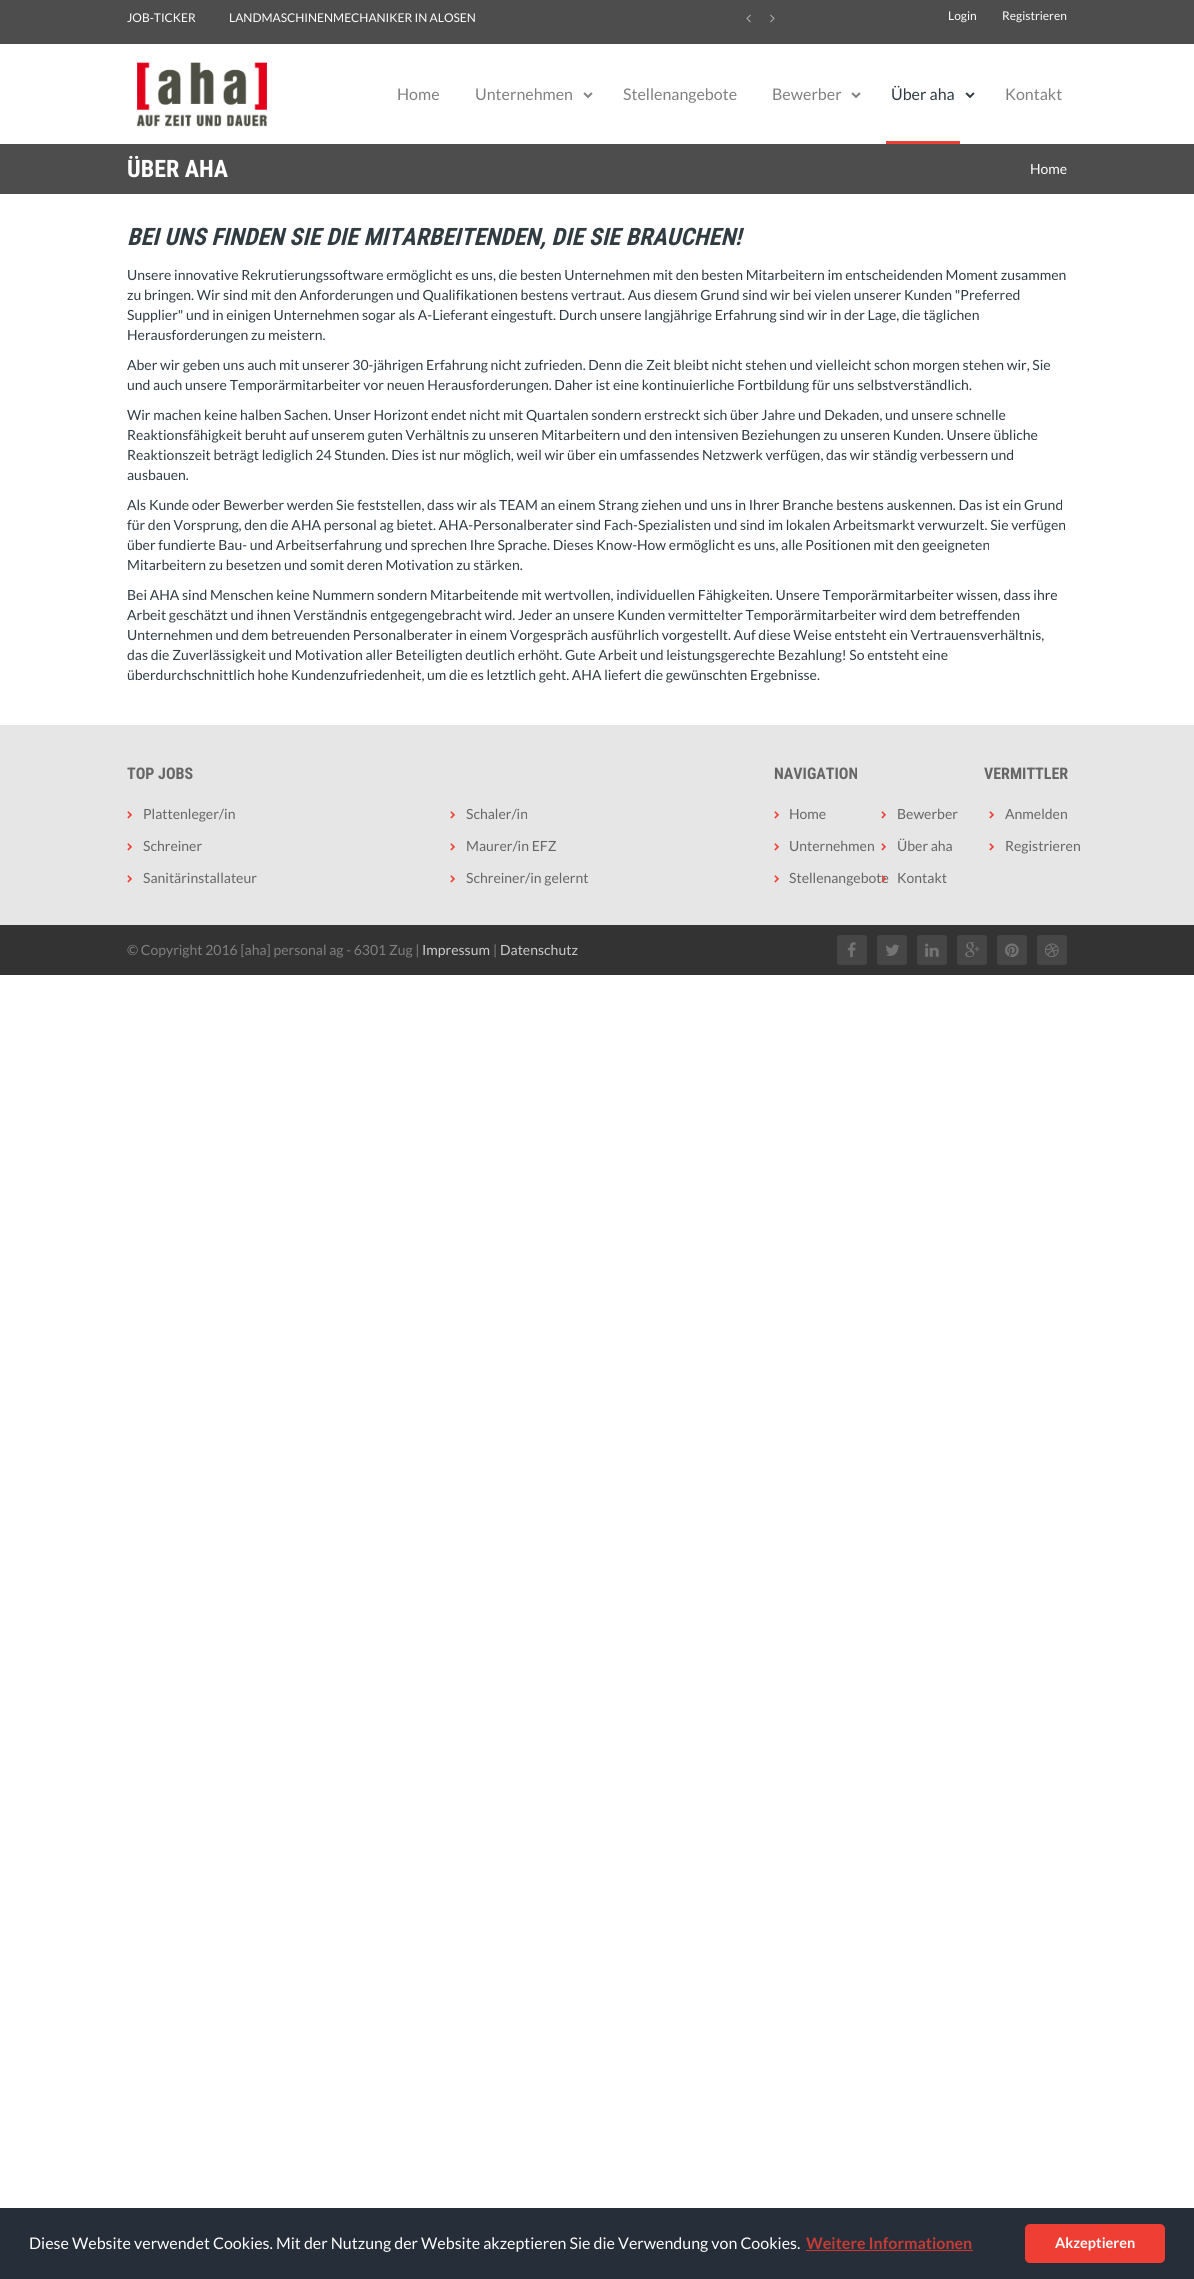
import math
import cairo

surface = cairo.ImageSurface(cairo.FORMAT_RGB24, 1194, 2279)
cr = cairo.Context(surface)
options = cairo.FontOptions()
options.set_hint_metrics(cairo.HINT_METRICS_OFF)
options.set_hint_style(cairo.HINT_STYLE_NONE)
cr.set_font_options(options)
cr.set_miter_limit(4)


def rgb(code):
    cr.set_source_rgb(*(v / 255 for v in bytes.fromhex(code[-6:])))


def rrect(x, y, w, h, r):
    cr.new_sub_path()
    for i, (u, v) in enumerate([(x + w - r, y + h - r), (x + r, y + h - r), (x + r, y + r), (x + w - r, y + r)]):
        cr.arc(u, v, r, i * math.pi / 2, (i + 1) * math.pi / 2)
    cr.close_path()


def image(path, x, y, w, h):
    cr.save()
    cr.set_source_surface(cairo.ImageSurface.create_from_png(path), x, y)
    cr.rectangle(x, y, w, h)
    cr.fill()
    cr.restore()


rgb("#ffffff")
cr.paint()
rgb("#4d4d4d")
cr.rectangle(0, 0, 1194, 44)
cr.fill()
image("img/1.png", 746, 14, 5, 9)
image("img/2.png", 770, 14, 5, 9)
image("img/3.png", 137, 62, 130, 65)
image("img/4.png", 583, 92, 10, 7)
image("img/4.png", 851, 92, 10, 7)
rgb("#ef3e33")
cr.rectangle(886, 141, 74, 3)
cr.fill()
image("img/5.png", 965, 92, 10, 7)
rgb("#4d4d4d")
cr.rectangle(0, 144, 1194, 50)
cr.fill()
rgb("#e6e6e6")
cr.rectangle(0, 725, 1194, 200)
cr.fill()
image("img/6.png", 127, 811, 5, 8)
image("img/6.png", 127, 843, 5, 8)
image("img/6.png", 127, 875, 5, 8)
image("img/6.png", 450, 811, 5, 8)
image("img/6.png", 450, 843, 5, 8)
image("img/6.png", 450, 875, 5, 8)
image("img/6.png", 774, 811, 5, 8)
image("img/6.png", 774, 843, 5, 8)
image("img/6.png", 774, 875, 5, 8)
image("img/6.png", 881, 811, 5, 8)
image("img/6.png", 881, 843, 5, 8)
image("img/6.png", 989, 811, 5, 8)
image("img/6.png", 989, 843, 5, 8)
rgb("#333333")
cr.rectangle(0, 925, 1194, 50)
cr.fill()
rgb("#464646")
rrect(837, 935, 30, 30, 3)
cr.fill()
image("img/8.png", 847, 942, 9, 16)
rrect(877, 935, 30, 30, 3)
cr.fill()
image("img/9.png", 886, 944, 14, 12)
rrect(917, 935, 30, 30, 3)
cr.fill()
image("img/10.png", 925, 943, 14, 14)
rrect(957, 935, 30, 30, 3)
cr.fill()
image("img/11.png", 965, 942, 15, 16)
rrect(997, 935, 30, 30, 3)
cr.fill()
image("img/12.png", 1005, 943, 14, 15)
rrect(1037, 935, 30, 30, 3)
cr.fill()
image("img/13.png", 1045, 943, 14, 15)
rgb("#252e39")
cr.rectangle(0, 2208, 1194, 71)
cr.fill()
rgb("#c73b34")
cr.rectangle(806, 2250, 167, 1)
cr.fill()
rgb("#ef3e33")
rrect(1025, 2224, 140, 39, 5)
cr.fill()
cr.select_font_face("Lato")
cr.set_font_size(12)
rgb("#ffffff")
for x, y, s in [
    (127, 22, "JOB-TICKER"),
    (229, 22, "LANDMASCHINENMECHANIKER IN ALOSEN"),
    (948, 20, "Login"),
    (1002, 20, "Registrieren"),
]:
    cr.move_to(x, y)
    cr.show_text(s)
cr.set_font_size(16)
rgb("#808080")
for x, y, s in [
    (397, 100, "Home"),
    (475, 100, "Unternehmen"),
    (623, 100, "Stellenangebote"),
    (772, 100, "Bewerber"),
]:
    cr.move_to(x, y)
    cr.show_text(s)
rgb("#303c42")
cr.move_to(891, 100)
cr.show_text("Über aha")
rgb("#808080")
cr.move_to(1005, 100)
cr.show_text("Kontakt")
cr.select_font_face("Roboto Condensed", cairo.FONT_SLANT_NORMAL, cairo.FONT_WEIGHT_BOLD)
cr.set_font_size(24)
rgb("#ffffff")
cr.move_to(127, 177)
cr.show_text("ÜBER AHA")
cr.select_font_face("Lato")
cr.set_font_size(14)
cr.move_to(1030, 174)
cr.show_text("Home")
cr.select_font_face("Roboto Condensed", cairo.FONT_SLANT_ITALIC, cairo.FONT_WEIGHT_BOLD)
cr.set_font_size(24)
rgb("#303c42")
cr.move_to(127, 245)
cr.show_text("BEI UNS FINDEN SIE DIE MITARBEITENDEN, DIE SIE BRAUCHEN!")
cr.select_font_face("Lato")
cr.set_font_size(14)
for x, y, s in [
    (127, 280, "Unsere innovative Rekrutierungssoftware ermöglicht es uns, die besten Unternehmen mit den besten Mitarbeitern im entscheidenden Moment zusammen"),
    (127, 300, "zu bringen. Wir sind mit den Anforderungen und Qualifikationen bestens vertraut. Aus diesem Grund sind wir bei vielen unserer Kunden \"Preferred"),
    (127, 320, "Supplier\" und in einigen Unternehmen sogar als A-Lieferant eingestuft. Durch unsere langjährige Erfahrung sind wir in der Lage, die täglichen"),
    (127, 340, "Herausforderungen zu meistern."),
    (127, 370, "Aber wir geben uns auch mit unserer 30-jährigen Erfahrung nicht zufrieden. Denn die Zeit bleibt nicht stehen und vielleicht schon morgen stehen wir, Sie"),
    (127, 390, "und auch unsere Temporärmitarbeiter vor neuen Herausforderungen. Daher ist eine kontinuierliche Fortbildung für uns selbstverständlich."),
    (127, 420, "Wir machen keine halben Sachen. Unser Horizont endet nicht mit Quartalen sondern erstreckt sich über Jahre und Dekaden, und unsere schnelle"),
    (127, 440, "Reaktionsfähigkeit beruht auf unserem guten Verhältnis zu unseren Mitarbeitern und den intensiven Beziehungen zu unseren Kunden. Unsere übliche"),
    (127, 460, "Reaktionszeit beträgt lediglich 24 Stunden. Dies ist nur möglich, weil wir über ein umfassendes Netzwerk verfügen, das wir ständig verbessern und"),
    (127, 480, "ausbauen."),
    (127, 510, "Als Kunde oder Bewerber werden Sie feststellen, dass wir als TEAM an einem Strang ziehen und uns in Ihrer Branche bestens auskennen. Das ist ein Grund"),
    (127, 530, "für den Vorsprung, den die AHA personal ag bietet. AHA-Personalberater sind Fach-Spezialisten und sind im lokalen Arbeitsmarkt verwurzelt. Sie verfügen"),
    (127, 550, "über fundierte Bau- und Arbeitserfahrung und sprechen Ihre Sprache. Dieses Know-How ermöglicht es uns, alle Positionen mit den geeigneten"),
    (127, 570, "Mitarbeitern zu besetzen und somit deren Motivation zu stärken."),
    (127, 600, "Bei AHA sind Menschen keine Nummern sondern Mitarbeitende mit wertvollen, individuellen Fähigkeiten. Unsere Temporärmitarbeiter wissen, dass ihre"),
    (127, 620, "Arbeit geschätzt und ihnen Verständnis entgegengebracht wird. Jeder an unsere Kunden vermittelter Temporärmitarbeiter wird dem betreffenden"),
    (127, 640, "Unternehmen und dem betreuenden Personalberater in einem Vorgespräch ausführlich vorgestellt. Auf diese Weise entsteht ein Vertrauensverhältnis,"),
    (127, 660, "das die Zuverlässigkeit und Motivation aller Beteiligten deutlich erhöht. Gute Arbeit und leistungsgerechte Bezahlung! So entsteht eine"),
    (127, 680, "überdurchschnittlich hohe Kundenzufriedenheit, um die es letztlich geht. AHA liefert die gewünschten Ergebnisse."),
]:
    cr.move_to(x, y)
    cr.show_text(s)
cr.select_font_face("Roboto Condensed", cairo.FONT_SLANT_NORMAL, cairo.FONT_WEIGHT_BOLD)
cr.set_font_size(16)
rgb("#666666")
cr.move_to(127, 779)
cr.show_text("TOP JOBS")
cr.select_font_face("Lato")
cr.set_font_size(14)
for x, y, s in [
    (143, 819, "Plattenleger/in"),
    (143, 851, "Schreiner"),
    (143, 883, "Sanitärinstallateur"),
    (466, 819, "Schaler/in"),
    (466, 851, "Maurer/in EFZ"),
    (466, 883, "Schreiner/in gelernt"),
]:
    cr.move_to(x, y)
    cr.show_text(s)
cr.select_font_face("Roboto Condensed", cairo.FONT_SLANT_NORMAL, cairo.FONT_WEIGHT_BOLD)
cr.set_font_size(16)
cr.move_to(774, 779)
cr.show_text("NAVIGATION")
cr.move_to(984, 779)
cr.show_text("VERMITTLER")
cr.select_font_face("Lato")
cr.set_font_size(14)
for x, y, s in [
    (789, 819, "Home"),
    (789, 851, "Unternehmen"),
    (789, 883, "Stellenangebote"),
    (897, 819, "Bewerber"),
    (897, 851, "Über aha"),
]:
    cr.move_to(x, y)
    cr.show_text(s)
image("img/7.png", 881, 875, 5, 8)
for x, y, s in [
    (897, 883, "Kontakt"),
    (1005, 819, "Anmelden"),
    (1005, 851, "Registrieren"),
]:
    cr.move_to(x, y)
    cr.show_text(s)
rgb("#808080")
cr.move_to(127, 955)
cr.show_text("© Copyright 2016 [aha] personal ag - 6301 Zug |")
rgb("#cccccc")
cr.move_to(422, 955)
cr.show_text("Impressum")
rgb("#808080")
cr.move_to(493, 955)
cr.show_text("|")
rgb("#cccccc")
cr.move_to(500, 955)
cr.show_text("Datenschutz")
cr.set_font_size(16)
rgb("#ffffff")
cr.move_to(29, 2249)
cr.show_text("Diese Website verwendet Cookies. Mit der Nutzung der Website akzeptieren Sie die Verwendung von Cookies.")
cr.select_font_face("Lato", cairo.FONT_SLANT_NORMAL, cairo.FONT_WEIGHT_BOLD)
rgb("#c73b34")
cr.move_to(806, 2249)
cr.show_text("Weitere Informationen")
cr.set_font_size(14.5)
rgb("#ffffff")
cr.move_to(1055, 2248)
cr.show_text("Akzeptieren")
surface.write_to_png("page.png")
